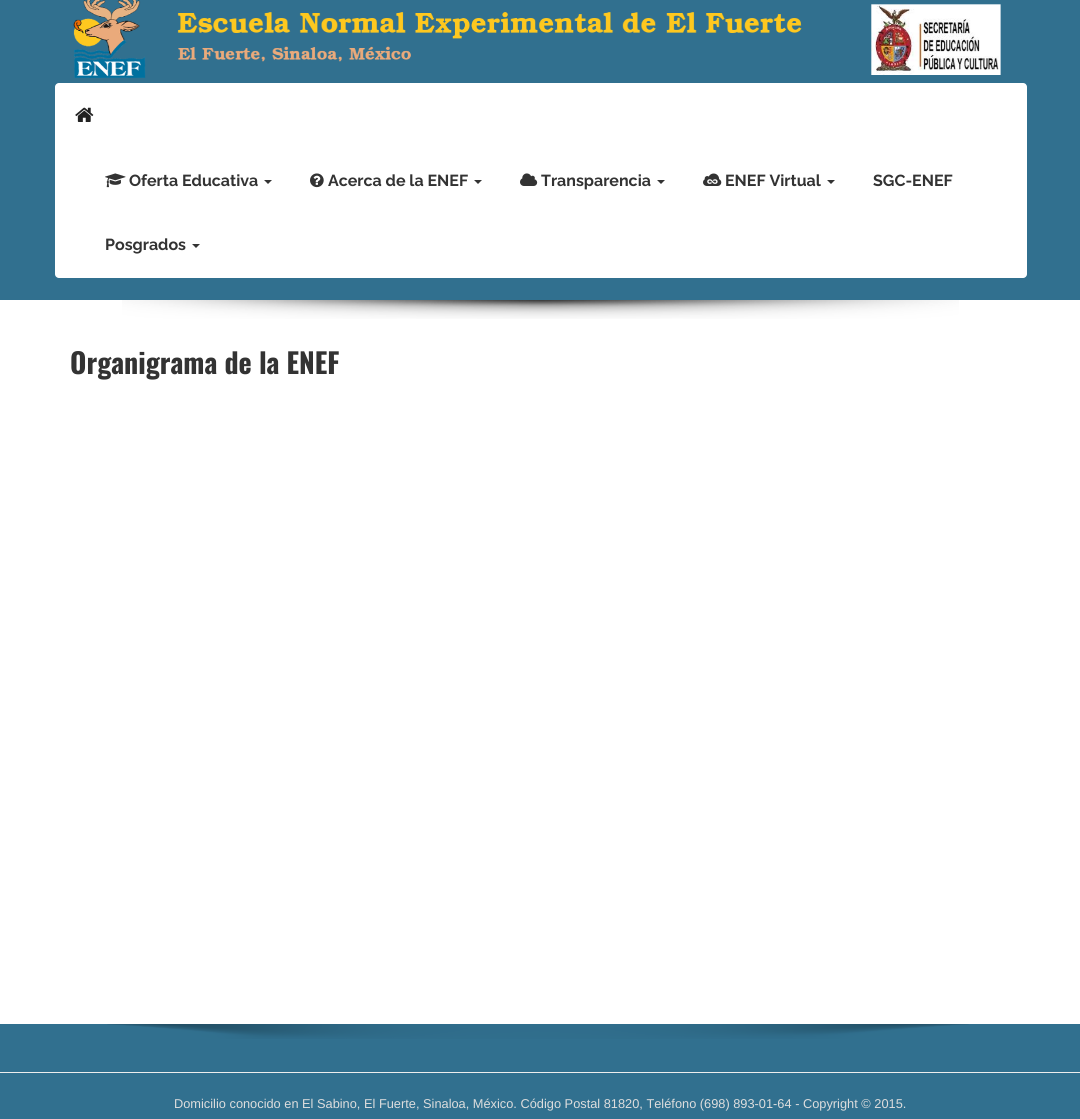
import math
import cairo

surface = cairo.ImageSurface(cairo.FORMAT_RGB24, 1080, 1119)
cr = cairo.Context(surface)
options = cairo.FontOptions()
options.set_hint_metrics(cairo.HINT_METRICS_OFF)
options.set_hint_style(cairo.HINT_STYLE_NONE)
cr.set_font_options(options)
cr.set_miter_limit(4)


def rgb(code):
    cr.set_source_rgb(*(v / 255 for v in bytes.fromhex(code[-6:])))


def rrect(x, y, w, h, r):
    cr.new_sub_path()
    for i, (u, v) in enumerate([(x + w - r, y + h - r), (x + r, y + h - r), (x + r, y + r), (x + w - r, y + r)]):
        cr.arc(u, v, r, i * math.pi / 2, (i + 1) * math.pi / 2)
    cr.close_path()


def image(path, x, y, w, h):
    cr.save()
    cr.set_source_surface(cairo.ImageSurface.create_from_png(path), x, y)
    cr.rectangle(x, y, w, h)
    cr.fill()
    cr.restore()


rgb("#ffffff")
cr.paint()
rgb("#31708f")
cr.rectangle(0, 0, 1080, 300)
cr.fill()
image("img/1.png", 73, 0, 928, 78)
rgb("#ffffff")
rrect(55, 83, 972, 195, 4)
cr.fill()
image("img/2.png", 75, 107, 19, 15)
image("img/3.png", 105, 173, 21, 15)
rgb("#333333")
cr.new_path()
cr.move_to(264, 180)
cr.line_to(272, 180)
cr.line_to(268, 184)
cr.close_path()
cr.fill()
image("img/4.png", 310, 173, 14, 15)
cr.new_path()
cr.move_to(474, 180)
cr.line_to(482, 180)
cr.line_to(478, 184)
cr.close_path()
cr.fill()
image("img/5.png", 520, 173, 18, 13)
cr.new_path()
cr.move_to(657, 180)
cr.line_to(665, 180)
cr.line_to(661, 184)
cr.close_path()
cr.fill()
image("img/6.png", 703, 173, 19, 13)
cr.new_path()
cr.move_to(827, 180)
cr.line_to(835, 180)
cr.line_to(831, 184)
cr.close_path()
cr.fill()
cr.new_path()
cr.move_to(192, 244)
cr.line_to(200, 244)
cr.line_to(196, 248)
cr.close_path()
cr.fill()
image("img/7.png", 122, 300, 837, 19)
rgb("#31708f")
cr.rectangle(0, 1024, 1080, 95)
cr.fill()
image("img/8.png", 107, 1024, 862, 15)
rgb("#eeeeee")
cr.rectangle(0, 1072, 1080, 1)
cr.fill()
cr.select_font_face("Raleway", cairo.FONT_SLANT_NORMAL, cairo.FONT_WEIGHT_BOLD)
cr.set_font_size(16)
rgb("#333333")
for x, y, s in [
    (129, 186, "Oferta Educativa"),
    (328, 186, "Acerca de la ENEF"),
    (541, 186, "Transparencia"),
    (725, 186, "ENEF Virtual"),
    (873, 186, "SGC-ENEF"),
    (105, 250, "Posgrados"),
]:
    cr.move_to(x, y)
    cr.show_text(s)
cr.select_font_face("Oswald", cairo.FONT_SLANT_NORMAL, cairo.FONT_WEIGHT_BOLD)
cr.set_font_size(28)
cr.move_to(70, 374)
cr.show_text("Organigrama de la ENEF")
cr.select_font_face("Liberation Sans")
cr.set_font_size(12.8)
rgb("#dddddd")
cr.move_to(174, 1108)
cr.show_text("Domicilio conocido en El Sabino, El Fuerte, Sinaloa, México. Código Postal 81820, Teléfono (698) 893-01-64 - Copyright © 2015.")
surface.write_to_png("page.png")
